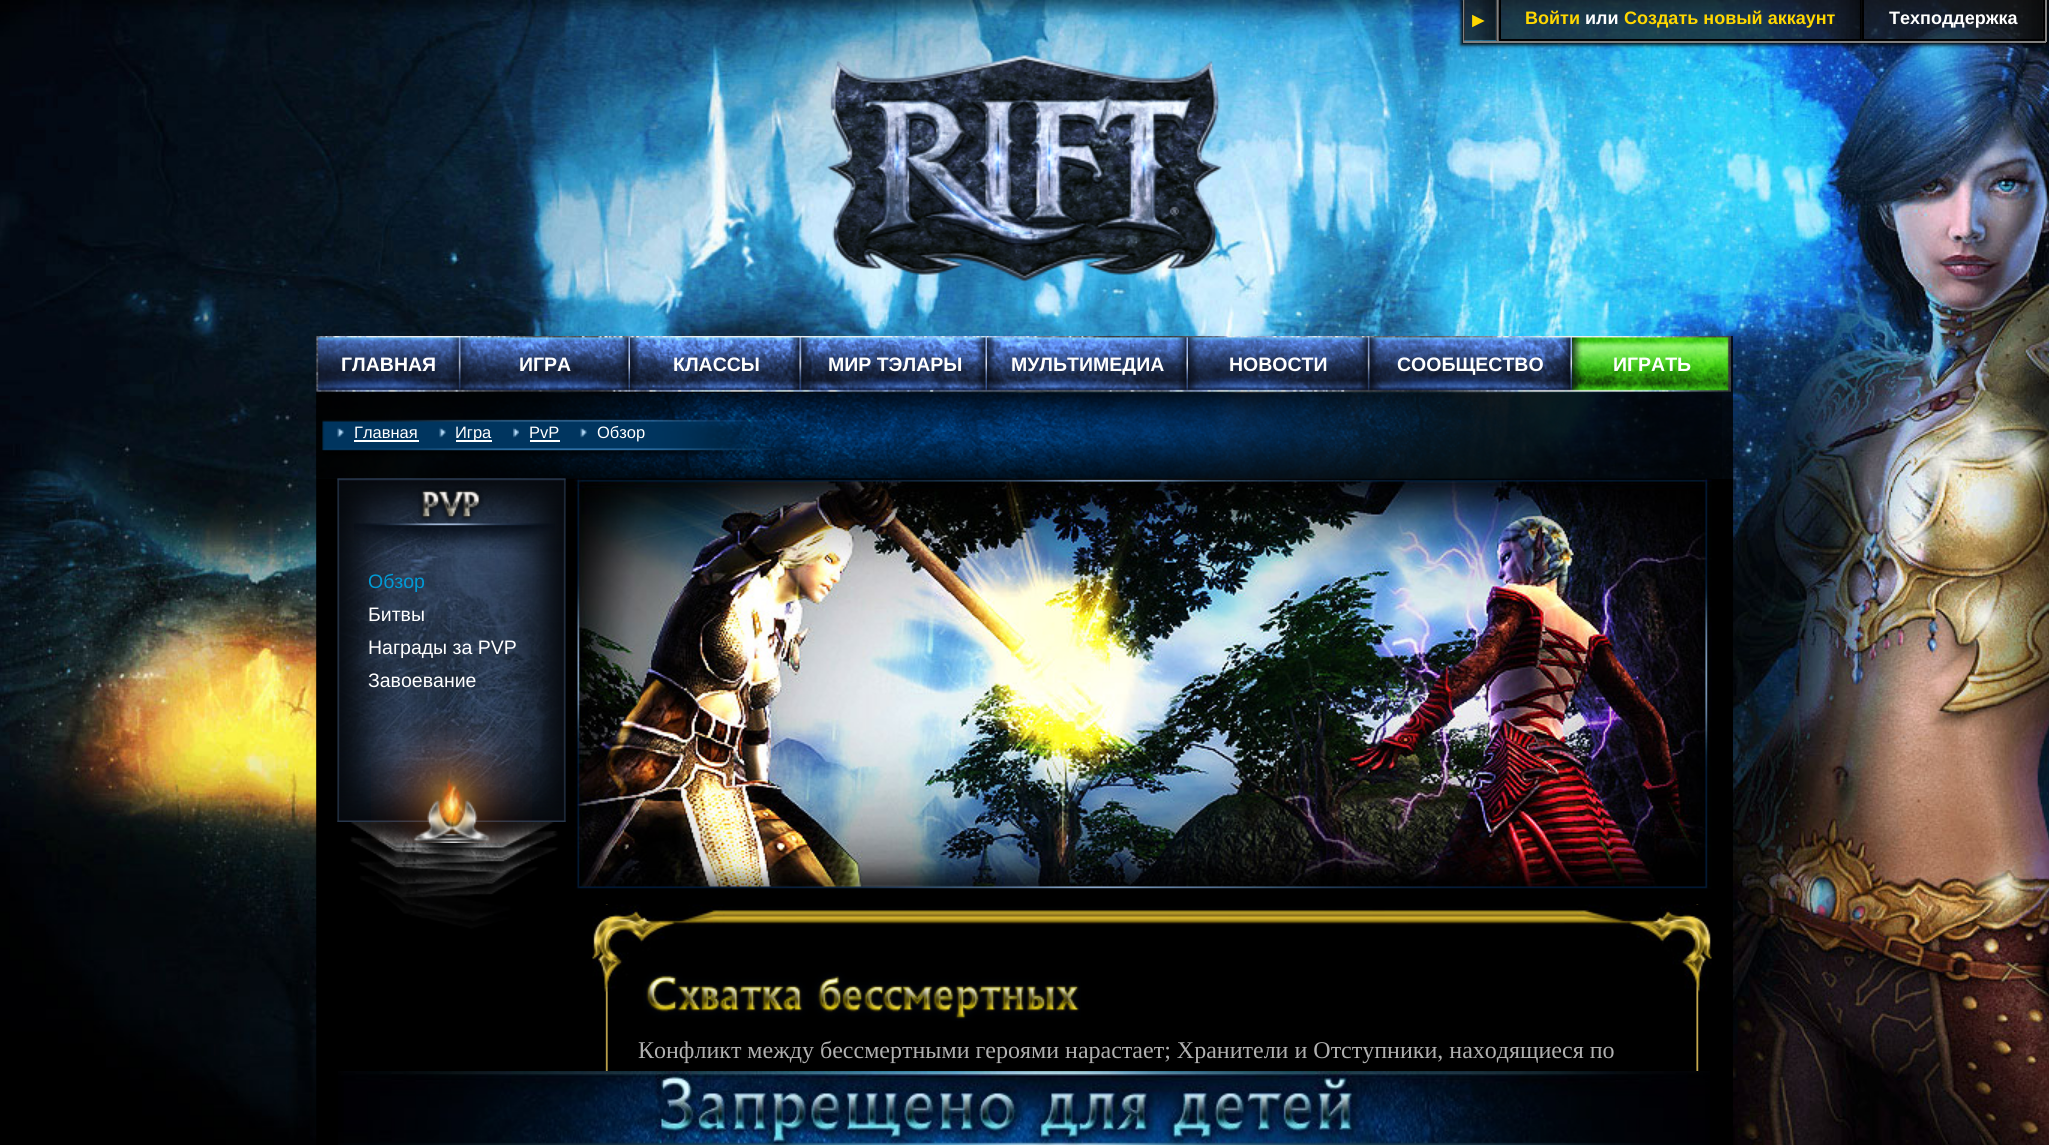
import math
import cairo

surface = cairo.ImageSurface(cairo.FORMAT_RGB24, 2049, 1145)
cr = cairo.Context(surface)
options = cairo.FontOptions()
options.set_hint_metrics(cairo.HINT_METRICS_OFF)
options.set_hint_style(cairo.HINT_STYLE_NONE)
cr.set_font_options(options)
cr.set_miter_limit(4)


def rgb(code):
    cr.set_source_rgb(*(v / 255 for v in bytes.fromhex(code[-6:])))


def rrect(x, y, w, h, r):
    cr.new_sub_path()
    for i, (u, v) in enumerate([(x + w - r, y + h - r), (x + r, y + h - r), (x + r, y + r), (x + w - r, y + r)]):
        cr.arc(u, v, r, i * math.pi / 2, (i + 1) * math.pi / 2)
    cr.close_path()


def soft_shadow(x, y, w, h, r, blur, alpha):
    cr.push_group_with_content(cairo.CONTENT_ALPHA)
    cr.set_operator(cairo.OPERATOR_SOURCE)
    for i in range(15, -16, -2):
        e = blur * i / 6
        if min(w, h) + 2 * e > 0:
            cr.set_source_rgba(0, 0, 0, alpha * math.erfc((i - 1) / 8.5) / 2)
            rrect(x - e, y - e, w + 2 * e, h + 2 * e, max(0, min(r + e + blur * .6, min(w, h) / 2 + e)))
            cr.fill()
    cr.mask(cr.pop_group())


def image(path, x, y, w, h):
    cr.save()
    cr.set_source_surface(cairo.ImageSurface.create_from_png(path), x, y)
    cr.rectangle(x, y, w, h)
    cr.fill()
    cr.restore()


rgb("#ffffff")
cr.paint()
image("img/1.png", 0, 0, 2049, 1145)
cr.save()
cr.set_fill_rule(cairo.FILL_RULE_EVEN_ODD)
cr.new_path()
cr.move_to(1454, 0)
cr.line_to(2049, 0)
cr.line_to(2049, 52)
cr.line_to(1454, 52)
cr.close_path()
cr.move_to(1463, 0)
cr.line_to(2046, 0)
cr.line_to(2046, 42)
cr.line_to(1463, 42)
cr.close_path()
cr.clip()
rgb("#000000")
soft_shadow(1461, 0, 587, 45, 0, 2, 1)
cr.restore()
for x, y, w, h, color in [
    (2045, 0, 2, 42, "#808080"),
    (1463, 41, 583, 2, "#808080"),
    (1463, 0, 2, 42, "#808080"),
]:
    rgb(color)
    cr.rectangle(x, y, w, h)
    cr.fill()
image("img/2.png", 1464, 0, 32, 41)
cr.rectangle(1496, 0, 3, 41)
cr.fill()
cr.set_source_rgba(0.09, 0.09, 0.09, 0.56)
cr.rectangle(1496, 0, 1, 41)
cr.fill()
image("img/3.png", 1498, 0, 362, 41)
for x, y, w, h, color in [
    (1860, 0, 2, 41, "#000000"),
    (1499, 39, 363, 2, "#000000"),
    (1499, 0, 2, 41, "#000000"),
]:
    rgb(color)
    cr.rectangle(x, y, w, h)
    cr.fill()
image("img/4.png", 1861, 0, 182, 41)
for x, y, w, h, color in [
    (2043, 0, 2, 41, "#000000"),
    (1862, 39, 183, 2, "#000000"),
    (1862, 0, 2, 41, "#000000"),
]:
    rgb(color)
    cr.rectangle(x, y, w, h)
    cr.fill()
image("img/5.png", 826, 54, 397, 229)
cr.set_source_rgba(0, 0, 0, 0.82)
cr.rectangle(316, 336, 1417, 809)
cr.fill()
image("img/6.png", 316, 336, 1415, 56)
image("img/7.png", 316, 336, 145, 56)
image("img/8.png", 460, 336, 170, 56)
image("img/9.png", 630, 336, 173, 56)
image("img/10.png", 802, 336, 185, 56)
image("img/11.png", 987, 336, 201, 56)
image("img/12.png", 1188, 336, 182, 56)
image("img/13.png", 1369, 336, 203, 56)
image("img/14.png", 1572, 336, 159, 56)
image("img/15.png", 317, 393, 1405, 86)
image("img/16.png", 337, 427, 7, 11)
rgb("#ffffff")
cr.rectangle(354, 440, 65, 2)
cr.fill()
image("img/17.png", 439, 427, 7, 11)
cr.rectangle(456, 440, 36, 2)
cr.fill()
image("img/18.png", 513, 427, 6, 11)
cr.rectangle(530, 440, 30, 2)
cr.fill()
image("img/17.png", 580, 427, 7, 11)
rgb("#000000")
cr.rectangle(317, 479, 1416, 666)
cr.fill()
image("img/19.png", 339, 478, 225, 343)
image("img/20.png", 337, 478, 229, 344)
image("img/21.png", 337, 478, 229, 75)
image("img/22.png", 337, 747, 229, 75)
image("img/23.png", 354, 523, 201, 26)
image("img/24.png", 418, 488, 66, 34)
image("img/25.png", 350, 822, 208, 107)
image("img/26.png", 371, 713, 161, 130)
image("img/27.png", 574, 478, 1138, 411)
image("img/28.png", 605, 904, 1094, 167)
image("img/29.png", 592, 904, 1120, 88)
image("img/30.png", 643, 972, 438, 49)
image("img/31.png", 338, 1071, 1372, 74)
cr.select_font_face("Liberation Sans", cairo.FONT_SLANT_NORMAL, cairo.FONT_WEIGHT_BOLD)
cr.set_font_size(21)
rgb("#ffd700")
cr.move_to(1468, 27)
cr.show_text("►")
cr.set_font_size(18)
cr.move_to(1525, 24)
cr.show_text("Войти")
rgb("#ffffff")
cr.move_to(1585, 24)
cr.show_text("или")
rgb("#ffd700")
cr.move_to(1624, 24)
cr.show_text("Создать новый аккаунт")
rgb("#ffffff")
cr.move_to(1889, 24)
cr.show_text("Техподдержка")
cr.set_font_size(19.5)
for x, y, s in [
    (341, 371, "ГЛАВНАЯ"),
    (519, 371, "ИГРА"),
    (673, 371, "КЛАССЫ"),
    (828, 371, "МИР ТЭЛАРЫ"),
    (1011, 371, "МУЛЬТИМЕДИА"),
    (1229, 371, "НОВОСТИ"),
    (1397, 371, "СООБЩЕСТВО"),
    (1613, 371, "ИГРАТЬ"),
]:
    cr.move_to(x, y)
    cr.show_text(s)
cr.select_font_face("Liberation Sans")
cr.set_font_size(16.5)
for x, y, s in [
    (354, 438, "Главная"),
    (455, 438, "Игра"),
    (529, 438, "PvP"),
    (597, 438, "Обзор"),
]:
    cr.move_to(x, y)
    cr.show_text(s)
cr.set_font_size(19.5)
rgb("#009ad5")
cr.move_to(368, 588)
cr.show_text("Обзор")
rgb("#ffffff")
for x, y, s in [
    (368, 621, "Битвы"),
    (368, 654, "Награды за PVP"),
    (368, 687, "Завоевание"),
]:
    cr.move_to(x, y)
    cr.show_text(s)
cr.select_font_face("Liberation Serif")
cr.set_font_size(24)
rgb("#afafaf")
cr.move_to(638, 1058)
cr.show_text("Конфликт между бессмертными героями нарастает; Хранители и Отступники, находящиеся по")
surface.write_to_png("page.png")
